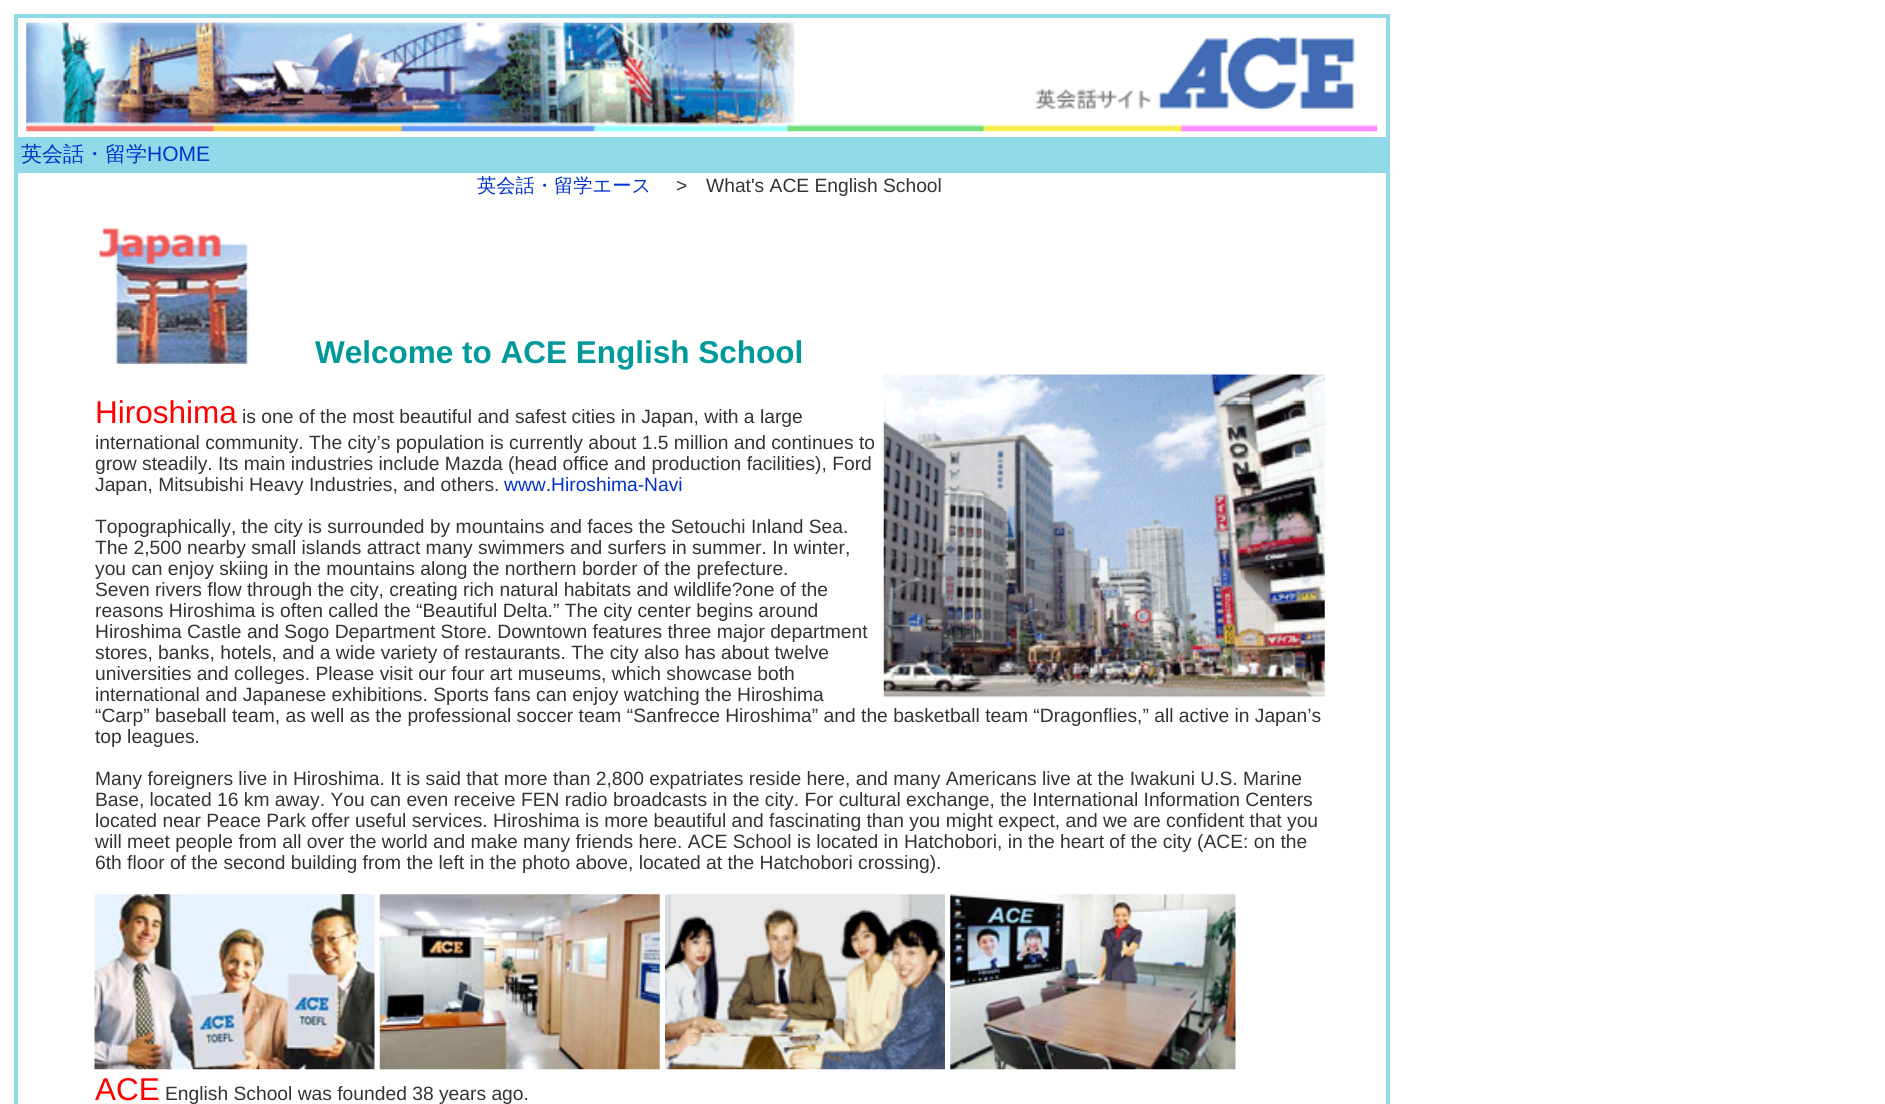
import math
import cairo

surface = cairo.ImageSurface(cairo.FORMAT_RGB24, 1885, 1104)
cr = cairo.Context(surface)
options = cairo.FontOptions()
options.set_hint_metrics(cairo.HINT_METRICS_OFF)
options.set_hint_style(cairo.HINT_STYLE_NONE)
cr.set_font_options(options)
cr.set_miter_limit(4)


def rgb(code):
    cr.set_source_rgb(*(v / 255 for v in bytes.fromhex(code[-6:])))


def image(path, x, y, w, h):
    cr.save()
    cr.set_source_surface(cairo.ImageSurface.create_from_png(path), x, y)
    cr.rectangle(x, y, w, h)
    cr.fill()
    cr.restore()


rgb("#ffffff")
cr.paint()
cr.rectangle(16, 16, 1372, 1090)
rgb("#91d9e8")
cr.set_line_width(4)
cr.stroke()
image("img/1.png", 26, 22, 1352, 110)
cr.rectangle(18, 137, 1368, 36)
cr.fill()
image("img/2.png", 98, 228, 151, 136)
image("img/3.png", 883, 374, 442, 323)
image("img/4.png", 94, 894, 281, 176)
image("img/5.png", 379, 894, 281, 176)
image("img/6.png", 665, 894, 280, 176)
image("img/7.png", 950, 894, 286, 176)
cr.select_font_face("WenQuanYi Zen Hei Medium")
cr.set_font_size(21)
rgb("#0033cc")
cr.move_to(21, 161)
cr.show_text("英会話・留学")
cr.select_font_face("Liberation Sans")
cr.move_to(147, 161)
cr.show_text("HOME")
cr.select_font_face("WenQuanYi Zen Hei Medium")
cr.set_font_size(19.25)
cr.move_to(477, 192)
cr.show_text("英会話・留学エース")
cr.select_font_face("Liberation Sans")
rgb("#333333")
cr.move_to(676, 192)
cr.show_text(">")
cr.move_to(706, 192)
cr.show_text("What's ACE English School")
cr.select_font_face("Liberation Sans", cairo.FONT_SLANT_NORMAL, cairo.FONT_WEIGHT_BOLD)
cr.set_font_size(31.5)
rgb("#009999")
cr.move_to(315, 363)
cr.show_text("Welcome to ACE English School")
cr.select_font_face("Liberation Sans")
rgb("#ff0000")
cr.move_to(95, 423)
cr.show_text("Hiroshima")
cr.set_font_size(19.25)
rgb("#333333")
for x, y, s in [
    (242, 423, "is one of the most beautiful and safest cities in Japan, with a large"),
    (95, 449, "international community. The city’s population is currently about 1.5 million and continues to"),
    (95, 470, "grow steadily. Its main industries include Mazda (head office and production facilities), Ford"),
    (95, 491, "Japan, Mitsubishi Heavy Industries, and others."),
]:
    cr.move_to(x, y)
    cr.show_text(s)
rgb("#0033cc")
cr.move_to(504, 491)
cr.show_text("www.Hiroshima-Navi")
rgb("#333333")
for x, y, s in [
    (95, 533, "Topographically, the city is surrounded by mountains and faces the Setouchi Inland Sea."),
    (95, 554, "The 2,500 nearby small islands attract many swimmers and surfers in summer. In winter,"),
    (95, 575, "you can enjoy skiing in the mountains along the northern border of the prefecture."),
    (95, 596, "Seven rivers flow through the city, creating rich natural habitats and wildlife?one of the"),
    (95, 617, "reasons Hiroshima is often called the “Beautiful Delta.” The city center begins around"),
    (95, 638, "Hiroshima Castle and Sogo Department Store. Downtown features three major department"),
    (95, 659, "stores, banks, hotels, and a wide variety of restaurants. The city also has about twelve"),
    (95, 680, "universities and colleges. Please visit our four art museums, which showcase both"),
    (95, 701, "international and Japanese exhibitions. Sports fans can enjoy watching the Hiroshima"),
    (95, 722, "“Carp” baseball team, as well as the professional soccer team “Sanfrecce Hiroshima” and the basketball team “Dragonflies,” all active in Japan’s"),
    (95, 743, "top leagues."),
    (95, 785, "Many foreigners live in Hiroshima. It is said that more than 2,800 expatriates reside here, and many Americans live at the Iwakuni U.S. Marine"),
    (95, 806, "Base, located 16 km away. You can even receive FEN radio broadcasts in the city. For cultural exchange, the International Information Centers"),
    (95, 827, "located near Peace Park offer useful services. Hiroshima is more beautiful and fascinating than you might expect, and we are confident that you"),
    (95, 848, "will meet people from all over the world and make many friends here. ACE School is located in Hatchobori, in the heart of the city (ACE: on the"),
    (95, 869, "6th floor of the second building from the left in the photo above, located at the Hatchobori crossing)."),
]:
    cr.move_to(x, y)
    cr.show_text(s)
cr.set_font_size(31.5)
rgb("#ff0000")
cr.move_to(95, 1100)
cr.show_text("ACE")
cr.set_font_size(19.25)
rgb("#333333")
cr.move_to(165, 1100)
cr.show_text("English School was founded 38 years ago.")
surface.write_to_png("page.png")
